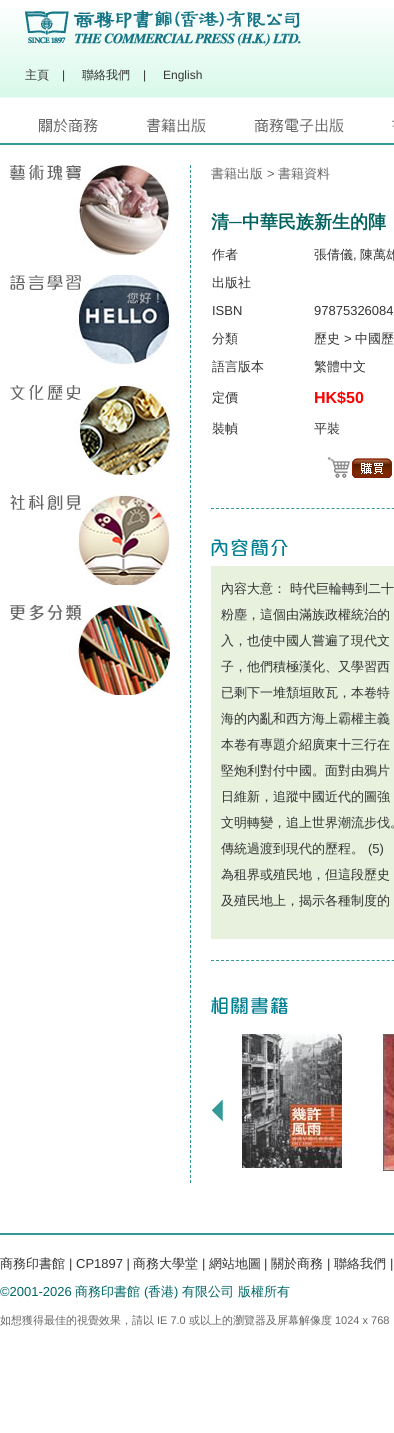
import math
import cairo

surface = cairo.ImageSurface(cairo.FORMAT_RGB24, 394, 1433)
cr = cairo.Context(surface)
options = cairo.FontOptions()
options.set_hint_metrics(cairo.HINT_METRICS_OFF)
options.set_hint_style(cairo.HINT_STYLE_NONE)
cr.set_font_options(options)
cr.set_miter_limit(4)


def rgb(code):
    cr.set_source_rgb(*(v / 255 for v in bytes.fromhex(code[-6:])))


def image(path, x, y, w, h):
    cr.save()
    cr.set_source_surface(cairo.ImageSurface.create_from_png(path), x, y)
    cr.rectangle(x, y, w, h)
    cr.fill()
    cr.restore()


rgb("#ffffff")
cr.paint()
rgb("#349994")
cr.rectangle(0, 143, 394, 2)
cr.fill()
image("img/1.png", 0, 8, 394, 90)
image("img/2.png", 25, 10, 276, 36)
image("img/3.png", 39, 118, 59, 15)
image("img/4.png", 146, 118, 60, 15)
image("img/5.png", 254, 118, 90, 15)
image("img/6.png", 392, 120, 2, 7)
image("img/7.png", 10, 165, 160, 90)
image("img/8.png", 10, 275, 160, 90)
image("img/9.png", 10, 385, 160, 90)
image("img/10.png", 10, 495, 160, 90)
image("img/11.png", 10, 605, 160, 90)
cr.new_path()
cr.move_to(190.5, 165)
cr.line_to(190.5, 1184)
cr.set_line_width(1)
cr.set_dash([3, 2])
cr.stroke()
cr.new_path()
cr.move_to(211, 508.5)
cr.line_to(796, 508.5)
cr.set_dash([3, 2.02])
cr.stroke()
image("img/12.png", 327, 457, 65, 21)
image("img/13.png", 211, 539, 77, 17)
rgb("#e8f1de")
cr.rectangle(211, 566, 183, 373)
cr.fill()
cr.new_path()
cr.move_to(211, 960.5)
cr.line_to(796, 960.5)
rgb("#349994")
cr.stroke()
image("img/14.png", 211, 997, 77, 17)
image("img/15.png", 211, 1099, 12, 23)
image("img/16.png", 242, 1034, 100, 134)
image("img/17.png", 383, 1034, 11, 137)
cr.rectangle(0, 1233, 394, 2)
cr.fill()
cr.select_font_face("WenQuanYi Zen Hei Medium")
cr.set_font_size(12)
rgb("#333333")
cr.move_to(25, 79)
cr.show_text("主頁")
cr.select_font_face("Liberation Sans")
cr.move_to(62, 79)
cr.show_text("|")
cr.select_font_face("WenQuanYi Zen Hei Medium")
cr.move_to(82, 79)
cr.show_text("聯絡我們")
cr.select_font_face("Liberation Sans")
cr.move_to(143, 79)
cr.show_text("|")
cr.move_to(163, 79)
cr.show_text("English")
cr.select_font_face("WenQuanYi Zen Hei Medium")
cr.set_font_size(13)
rgb("#666666")
cr.move_to(211, 178)
cr.show_text("書籍出版")
cr.select_font_face("Liberation Sans")
cr.move_to(267, 178)
cr.show_text(">")
cr.select_font_face("WenQuanYi Zen Hei Medium")
cr.move_to(278, 178)
cr.show_text("書籍資料")
cr.select_font_face("WenQuanYi Zen Hei", cairo.FONT_SLANT_NORMAL, cairo.FONT_WEIGHT_BOLD)
cr.set_font_size(18)
rgb("#006360")
cr.move_to(211, 228)
cr.show_text("清")
cr.select_font_face("Liberation Sans", cairo.FONT_SLANT_NORMAL, cairo.FONT_WEIGHT_BOLD)
cr.move_to(229, 228)
cr.show_text("─")
cr.select_font_face("WenQuanYi Zen Hei", cairo.FONT_SLANT_NORMAL, cairo.FONT_WEIGHT_BOLD)
cr.move_to(242, 228)
cr.show_text("中華民族新生的陣")
cr.select_font_face("WenQuanYi Zen Hei Medium")
cr.set_font_size(13)
rgb("#333333")
cr.move_to(212, 259)
cr.show_text("作者")
cr.move_to(314, 259)
cr.show_text("張倩儀")
cr.select_font_face("Liberation Sans")
cr.move_to(353, 259)
cr.show_text(",")
cr.select_font_face("WenQuanYi Zen Hei Medium")
cr.move_to(360, 259)
cr.show_text("陳萬雄")
cr.move_to(212, 287)
cr.show_text("出版社")
cr.select_font_face("Liberation Sans")
cr.move_to(212, 315)
cr.show_text("ISBN")
cr.move_to(314, 315)
cr.show_text("97875326084")
cr.select_font_face("WenQuanYi Zen Hei Medium")
cr.move_to(212, 343)
cr.show_text("分類")
cr.move_to(314, 343)
cr.show_text("歷史")
cr.select_font_face("Liberation Sans")
cr.move_to(344, 343)
cr.show_text(">")
cr.select_font_face("WenQuanYi Zen Hei Medium")
for x, y, s in [
    (355, 343, "中國歷"),
    (212, 371, "語言版本"),
    (314, 371, "繁體中文"),
    (212, 402, "定價"),
]:
    cr.move_to(x, y)
    cr.show_text(s)
cr.select_font_face("Liberation Sans", cairo.FONT_SLANT_NORMAL, cairo.FONT_WEIGHT_BOLD)
cr.set_font_size(16)
rgb("#ff0000")
cr.move_to(314, 403)
cr.show_text("HK$50")
cr.select_font_face("WenQuanYi Zen Hei Medium")
cr.set_font_size(13)
rgb("#333333")
for x, y, s in [
    (212, 433, "裝幀"),
    (314, 433, "平裝"),
    (221, 593, "內容大意： 時代巨輪轉到二十"),
    (221, 619, "粉塵，這個由滿族政權統治的"),
    (221, 645, "入，也使中國人嘗遍了現代文"),
    (221, 671, "子，他們積極漢化、又學習西"),
    (221, 697, "已剩下一堆頹垣敗瓦，本卷特"),
    (221, 723, "海的內亂和西方海上霸權主義"),
    (221, 749, "本卷有專題介紹廣東十三行在"),
    (221, 775, "堅炮利對付中國。面對由鴉片"),
    (221, 801, "日維新，追蹤中國近代的圖強"),
    (221, 827, "文明轉變，追上世界潮流步伐。"),
    (221, 853, "傳統過渡到現代的歷程。"),
]:
    cr.move_to(x, y)
    cr.show_text(s)
cr.select_font_face("Liberation Sans")
cr.move_to(368, 853)
cr.show_text("(5)")
cr.select_font_face("WenQuanYi Zen Hei Medium")
for x, y, s in [
    (221, 879, "為租界或殖民地，但這段歷史"),
    (221, 905, "及殖民地上，揭示各種制度的"),
    (0, 1268, "商務印書館"),
]:
    cr.move_to(x, y)
    cr.show_text(s)
cr.select_font_face("Liberation Sans")
cr.move_to(69, 1268)
cr.show_text("| CP1897 |")
cr.select_font_face("WenQuanYi Zen Hei Medium")
cr.move_to(133, 1268)
cr.show_text("商務大學堂")
cr.select_font_face("Liberation Sans")
cr.move_to(202, 1268)
cr.show_text("|")
cr.select_font_face("WenQuanYi Zen Hei Medium")
cr.move_to(209, 1268)
cr.show_text("網站地圖")
cr.select_font_face("Liberation Sans")
cr.move_to(264, 1268)
cr.show_text("|")
cr.select_font_face("WenQuanYi Zen Hei Medium")
cr.move_to(271, 1268)
cr.show_text("關於商務")
cr.select_font_face("Liberation Sans")
cr.move_to(327, 1268)
cr.show_text("|")
cr.select_font_face("WenQuanYi Zen Hei Medium")
cr.move_to(334, 1268)
cr.show_text("聯絡我們")
cr.select_font_face("Liberation Sans")
cr.move_to(390, 1268)
cr.show_text("|")
rgb("#006666")
cr.move_to(0, 1296)
cr.show_text("©2001-2026")
cr.select_font_face("WenQuanYi Zen Hei Medium")
cr.move_to(75, 1296)
cr.show_text("商務印書館")
cr.select_font_face("Liberation Sans")
cr.move_to(144, 1296)
cr.show_text("(")
cr.select_font_face("WenQuanYi Zen Hei Medium")
cr.move_to(148, 1296)
cr.show_text("香港")
cr.select_font_face("Liberation Sans")
cr.move_to(174, 1296)
cr.show_text(")")
cr.select_font_face("WenQuanYi Zen Hei Medium")
cr.move_to(182, 1296)
cr.show_text("有限公司 版權所有")
cr.set_font_size(11)
rgb("#666666")
cr.move_to(0, 1324)
cr.show_text("如想獲得最佳的視覺效果，請以")
cr.select_font_face("Liberation Sans")
cr.move_to(157, 1324)
cr.show_text("IE 7.0")
cr.select_font_face("WenQuanYi Zen Hei Medium")
cr.move_to(189, 1324)
cr.show_text("或以上的瀏覽器及屏幕解像度")
cr.select_font_face("Liberation Sans")
cr.move_to(335, 1324)
cr.show_text("1024 x 768")
surface.write_to_png("page.png")
